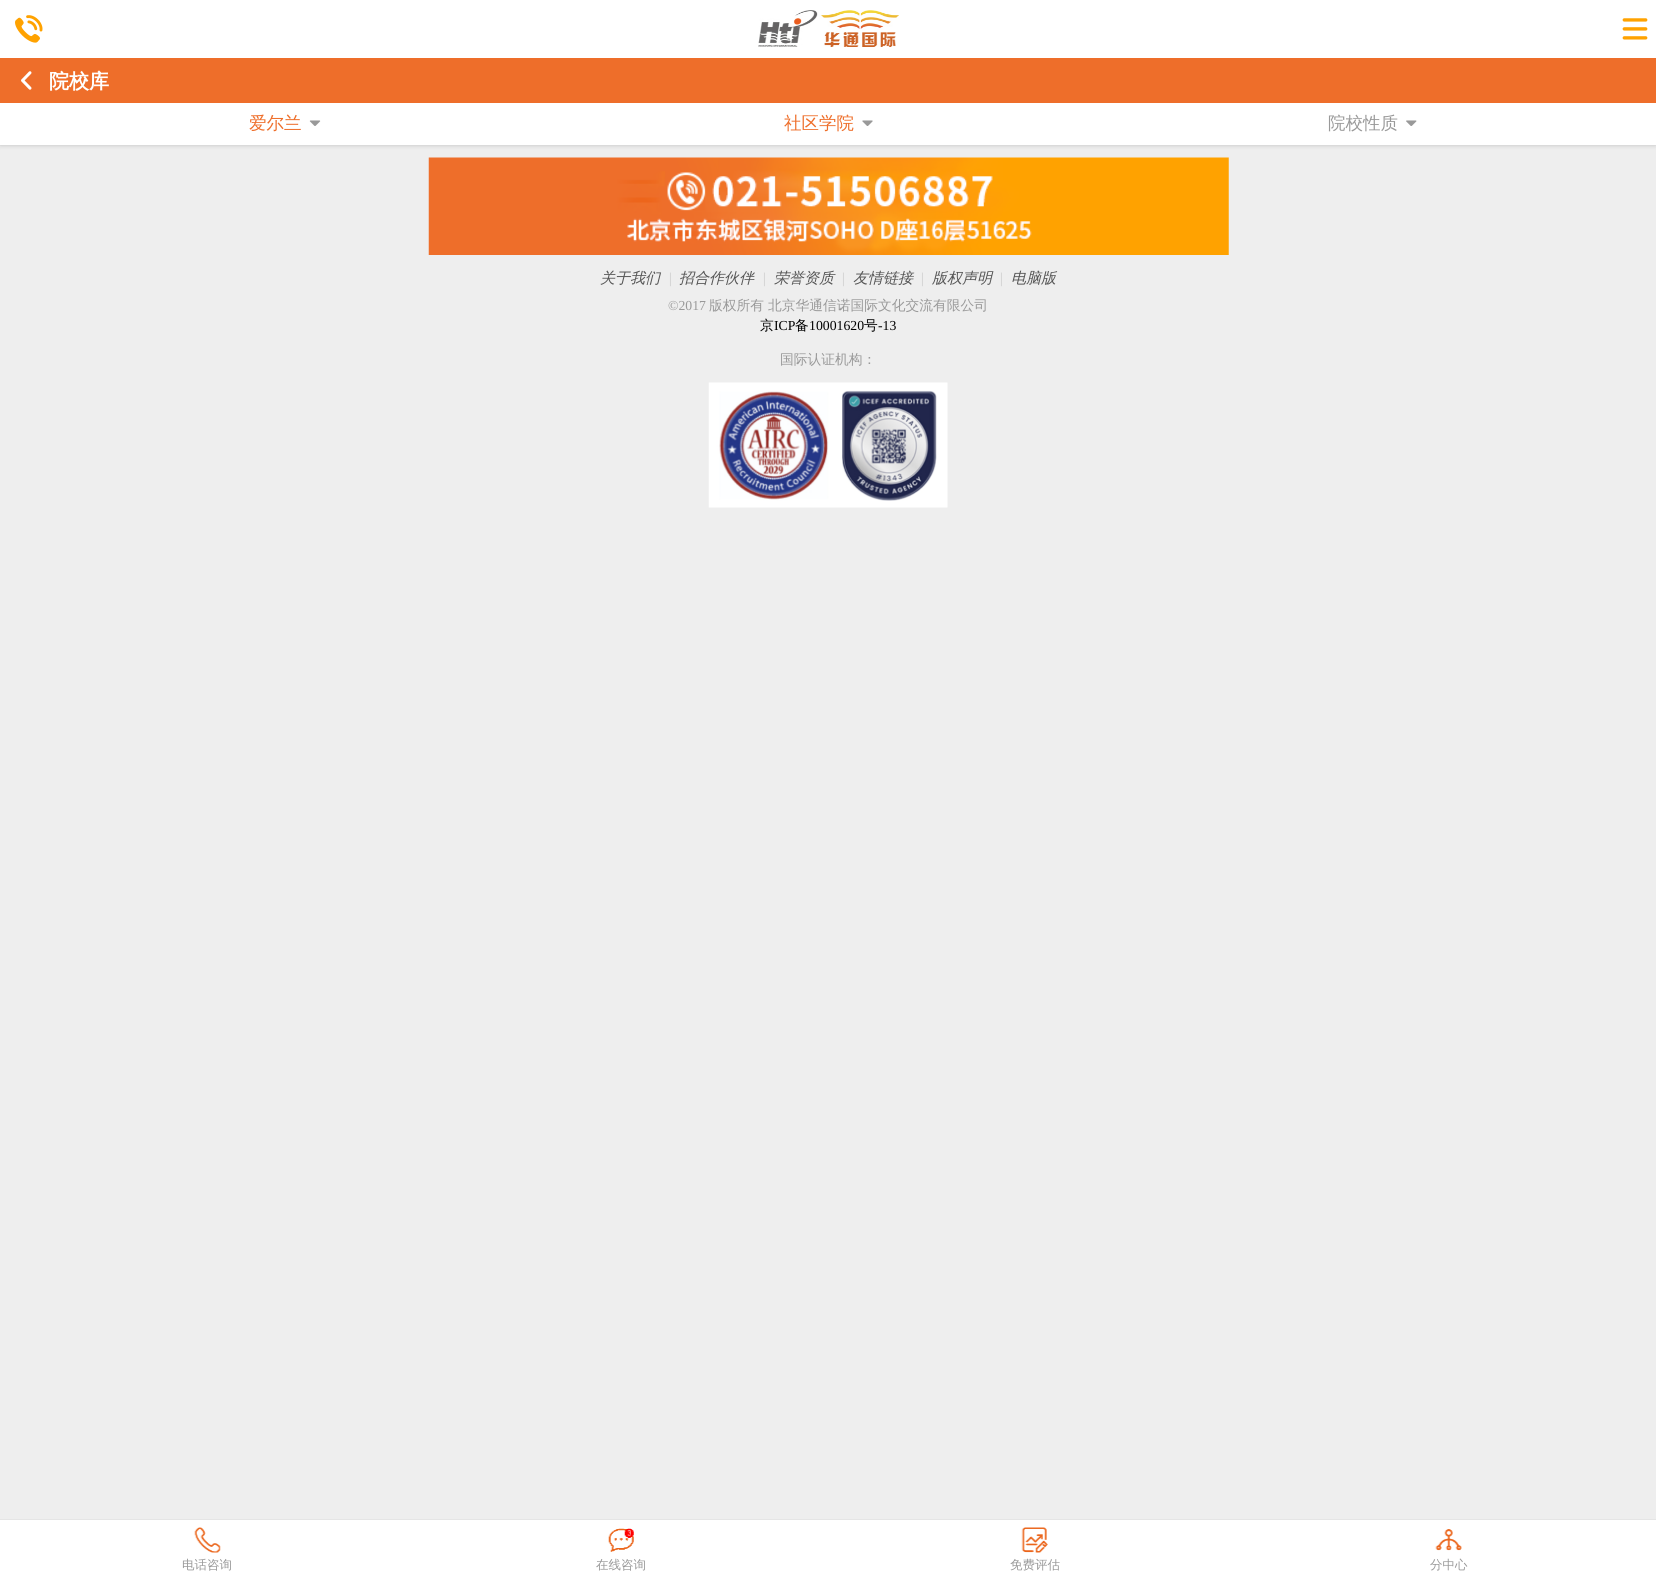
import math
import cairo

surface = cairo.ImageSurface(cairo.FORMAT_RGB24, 1656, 1581)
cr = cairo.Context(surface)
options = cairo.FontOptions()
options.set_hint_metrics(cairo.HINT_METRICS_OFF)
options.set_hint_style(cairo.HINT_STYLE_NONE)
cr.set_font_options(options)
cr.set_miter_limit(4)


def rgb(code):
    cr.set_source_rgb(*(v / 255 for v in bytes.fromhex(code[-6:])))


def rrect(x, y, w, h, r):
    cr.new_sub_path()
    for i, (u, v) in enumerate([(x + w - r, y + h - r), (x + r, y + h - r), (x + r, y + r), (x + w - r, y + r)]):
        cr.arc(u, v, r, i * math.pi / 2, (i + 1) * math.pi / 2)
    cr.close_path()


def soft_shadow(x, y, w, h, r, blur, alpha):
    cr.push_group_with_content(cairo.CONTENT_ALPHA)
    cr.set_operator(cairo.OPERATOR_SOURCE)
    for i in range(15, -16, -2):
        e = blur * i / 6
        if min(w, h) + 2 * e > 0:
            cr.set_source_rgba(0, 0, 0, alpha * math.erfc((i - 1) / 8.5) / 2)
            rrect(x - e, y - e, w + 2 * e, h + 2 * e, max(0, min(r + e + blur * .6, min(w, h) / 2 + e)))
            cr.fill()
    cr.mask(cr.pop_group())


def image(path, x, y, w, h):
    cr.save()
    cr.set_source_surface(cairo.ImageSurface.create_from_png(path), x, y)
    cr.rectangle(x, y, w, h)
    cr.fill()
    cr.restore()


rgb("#eeeeee")
cr.paint()
rgb("#000000")
soft_shadow(0, 0, 1656, 145, 0, 2.5, 0.2)
rgb("#ffffff")
cr.rectangle(0, 0, 1656, 145)
cr.fill()
image("img/1.png", 15, 15, 28, 28)
image("img/2.png", 758, 10, 141, 37)
image("img/3.png", 1622, 18, 26, 22)
rgb("#ee6e2a")
cr.rectangle(0, 58, 1656, 45)
cr.fill()
image("img/4.png", 21, 71, 11, 19)
image("img/5.png", 309, 120, 12, 6)
image("img/6.png", 862, 120, 11, 6)
image("img/7.png", 1406, 120, 11, 6)
image("img/8.png", 428, 157, 801, 98)
image("img/9.png", 708, 382, 240, 126)
rgb("#ffffff")
cr.rectangle(0, 1520, 1656, 61)
cr.fill()
rgb("#e5e5e5")
cr.rectangle(0, 1519, 1656, 1)
cr.fill()
image("img/10.png", 194, 1527, 27, 26)
image("img/11.png", 608, 1528, 26, 24)
image("img/12.png", 1021, 1527, 27, 26)
image("img/13.png", 1435, 1529, 27, 22)
cr.select_font_face("WenQuanYi Zen Hei", cairo.FONT_SLANT_NORMAL, cairo.FONT_WEIGHT_BOLD)
cr.set_font_size(20)
rgb("#ffffff")
cr.move_to(49, 88)
cr.show_text("院校库")
cr.select_font_face("WenQuanYi Zen Hei Medium")
cr.set_font_size(17.5)
rgb("#ee6e2a")
cr.move_to(249, 129)
cr.show_text("爱尔兰")
cr.move_to(784, 129)
cr.show_text("社区学院")
rgb("#999999")
cr.move_to(1328, 129)
cr.show_text("院校性质")
cr.select_font_face("WenQuanYi Zen Hei Medium", cairo.FONT_SLANT_ITALIC)
cr.set_font_size(15)
rgb("#555555")
cr.move_to(600, 283)
cr.show_text("关于我们")
cr.select_font_face("Liberation Serif", cairo.FONT_SLANT_ITALIC)
rgb("#cccccc")
cr.move_to(668, 283)
cr.show_text("|")
cr.select_font_face("WenQuanYi Zen Hei Medium", cairo.FONT_SLANT_ITALIC)
rgb("#555555")
cr.move_to(679, 283)
cr.show_text("招合作伙伴")
cr.select_font_face("Liberation Serif", cairo.FONT_SLANT_ITALIC)
rgb("#cccccc")
cr.move_to(762, 283)
cr.show_text("|")
cr.select_font_face("WenQuanYi Zen Hei Medium", cairo.FONT_SLANT_ITALIC)
rgb("#555555")
cr.move_to(774, 283)
cr.show_text("荣誉资质")
cr.select_font_face("Liberation Serif", cairo.FONT_SLANT_ITALIC)
rgb("#cccccc")
cr.move_to(841, 283)
cr.show_text("|")
cr.select_font_face("WenQuanYi Zen Hei Medium", cairo.FONT_SLANT_ITALIC)
rgb("#555555")
cr.move_to(853, 283)
cr.show_text("友情链接")
cr.select_font_face("Liberation Serif", cairo.FONT_SLANT_ITALIC)
rgb("#cccccc")
cr.move_to(920, 283)
cr.show_text("|")
cr.select_font_face("WenQuanYi Zen Hei Medium", cairo.FONT_SLANT_ITALIC)
rgb("#555555")
cr.move_to(932, 283)
cr.show_text("版权声明")
cr.select_font_face("Liberation Serif", cairo.FONT_SLANT_ITALIC)
rgb("#cccccc")
cr.move_to(999, 283)
cr.show_text("|")
cr.select_font_face("WenQuanYi Zen Hei Medium", cairo.FONT_SLANT_ITALIC)
rgb("#555555")
cr.move_to(1011, 283)
cr.show_text("电脑版")
cr.select_font_face("Liberation Serif")
cr.set_font_size(13.75)
rgb("#999999")
cr.move_to(668, 310)
cr.show_text("©2017")
cr.select_font_face("WenQuanYi Zen Hei Medium")
cr.move_to(709, 310)
cr.show_text("版权所有 北京华通信诺国际文化交流有限公司")
rgb("#000000")
cr.move_to(760, 330)
cr.show_text("京")
cr.select_font_face("Liberation Serif")
cr.move_to(774, 330)
cr.show_text("ICP")
cr.select_font_face("WenQuanYi Zen Hei Medium")
cr.move_to(795, 330)
cr.show_text("备")
cr.select_font_face("Liberation Serif")
cr.move_to(809, 330)
cr.show_text("10001620")
cr.select_font_face("WenQuanYi Zen Hei Medium")
cr.move_to(864, 330)
cr.show_text("号")
cr.select_font_face("Liberation Serif")
cr.move_to(878, 330)
cr.show_text("-13")
cr.select_font_face("WenQuanYi Zen Hei Medium")
rgb("#999999")
cr.move_to(780, 364)
cr.show_text("国际认证机构：")
cr.set_font_size(12.5)
for x, y, s in [
    (182, 1569, "电话咨询"),
    (596, 1569, "在线咨询"),
    (1010, 1569, "免费评估"),
    (1430, 1569, "分中心"),
]:
    cr.move_to(x, y)
    cr.show_text(s)
surface.write_to_png("page.png")
